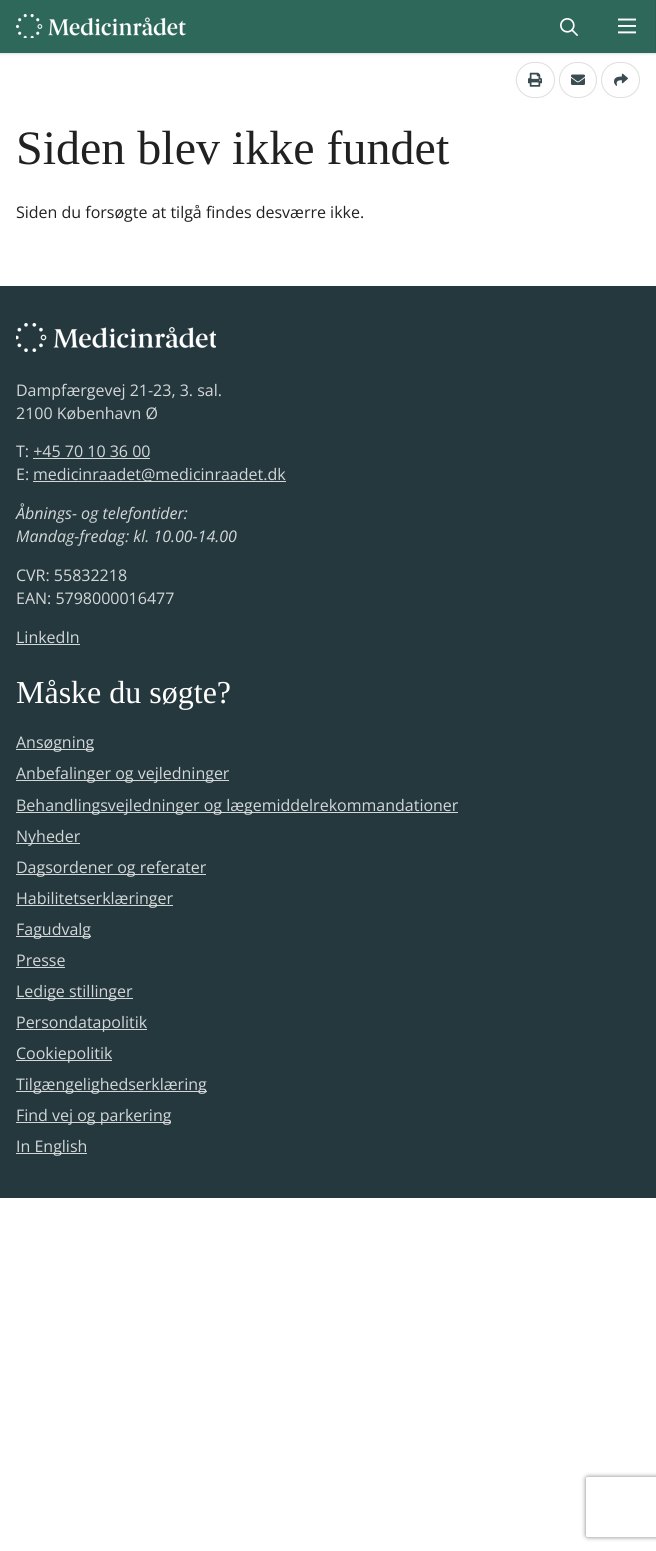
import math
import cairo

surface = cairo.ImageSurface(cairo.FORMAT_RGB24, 656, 1551)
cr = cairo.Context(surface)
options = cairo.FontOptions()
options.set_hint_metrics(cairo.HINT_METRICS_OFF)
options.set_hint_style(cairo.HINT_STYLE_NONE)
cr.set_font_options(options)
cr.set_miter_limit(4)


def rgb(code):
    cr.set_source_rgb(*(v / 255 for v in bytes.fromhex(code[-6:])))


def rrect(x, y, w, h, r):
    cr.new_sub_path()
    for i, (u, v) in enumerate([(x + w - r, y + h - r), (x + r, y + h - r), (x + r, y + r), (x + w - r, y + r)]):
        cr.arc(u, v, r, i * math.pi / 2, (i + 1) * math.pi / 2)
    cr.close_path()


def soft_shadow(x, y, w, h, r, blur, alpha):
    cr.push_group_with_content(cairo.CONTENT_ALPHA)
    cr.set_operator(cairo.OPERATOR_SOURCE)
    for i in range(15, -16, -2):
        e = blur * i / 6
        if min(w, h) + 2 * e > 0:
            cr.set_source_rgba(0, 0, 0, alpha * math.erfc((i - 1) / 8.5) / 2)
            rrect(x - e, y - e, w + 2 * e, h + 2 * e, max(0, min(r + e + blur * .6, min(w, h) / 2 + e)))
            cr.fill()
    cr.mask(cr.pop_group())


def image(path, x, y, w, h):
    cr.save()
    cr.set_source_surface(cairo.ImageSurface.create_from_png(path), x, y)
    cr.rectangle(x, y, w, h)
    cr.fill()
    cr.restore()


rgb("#ffffff")
cr.paint()
rgb("#222426")
soft_shadow(0, 1, 656, 53, 0, 1, 0.15)
rgb("#2e685a")
cr.rectangle(0, 0, 655, 53)
cr.fill()
image("img/1.png", 16, 14, 170, 24)
image("img/2.png", 560, 18, 18, 18)
image("img/3.png", 618, 18, 18, 16)
rgb("#2d6155")
cr.rectangle(655, 0, 1, 53)
cr.fill()
rrect(516.5, 62.5, 38, 35, 17.5)
rgb("#dedede")
cr.set_line_width(1)
cr.stroke()
image("img/4.png", 528, 72, 14, 15)
rrect(559.5, 62.5, 37, 35, 17.5)
cr.stroke()
image("img/5.png", 571, 74, 14, 11)
rrect(601.5, 62.5, 38, 35, 17.5)
cr.stroke()
image("img/6.png", 614, 73, 14, 13)
rgb("#25383e")
cr.rectangle(0, 286, 656, 912)
cr.fill()
image("img/7.png", 16, 323, 200, 29)
for x, y, w, h, color in [
    (33, 458, 117, 1, "#d3d7d8"),
    (33, 481, 253, 1, "#d3d7d8"),
    (16, 644, 64, 1, "#d3d7d8"),
    (16, 749, 78, 1, "#d3d7d8"),
    (16, 780, 213, 1, "#d3d7d8"),
    (16, 812, 442, 1, "#d3d7d8"),
    (16, 843, 64, 1, "#d3d7d8"),
    (16, 874, 190, 1, "#d3d7d8"),
    (16, 905, 157, 1, "#d3d7d8"),
    (16, 936, 75, 1, "#d3d7d8"),
    (16, 967, 49, 1, "#d3d7d8"),
    (16, 998, 117, 1, "#d3d7d8"),
    (16, 1029, 131, 1, "#d3d7d8"),
    (16, 1060, 96, 1, "#d3d7d8"),
    (16, 1091, 191, 1, "#d3d7d8"),
    (16, 1122, 155, 1, "#d3d7d8"),
    (16, 1153, 71, 1, "#d3d7d8"),
]:
    rgb(color)
    cr.rectangle(x, y, w, h)
    cr.fill()
cr.save()
cr.set_fill_rule(cairo.FILL_RULE_EVEN_ODD)
cr.new_path()
cr.move_to(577, 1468)
cr.line_to(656, 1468)
cr.line_to(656, 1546)
cr.line_to(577, 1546)
cr.close_path()
cr.move_to(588, 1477)
cr.line_to(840, 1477)
cr.curve_to(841, 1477, 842, 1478, 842, 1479)
cr.line_to(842, 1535)
cr.curve_to(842, 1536, 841, 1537, 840, 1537)
cr.line_to(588, 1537)
cr.curve_to(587, 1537, 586, 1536, 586, 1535)
cr.line_to(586, 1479)
cr.curve_to(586, 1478, 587, 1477, 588, 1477)
cr.close_path()
cr.clip()
rgb("#808080")
soft_shadow(586, 1477, 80, 60, 2, 2.5, 1)
cr.restore()
cr.select_font_face("Tinos")
cr.set_font_size(48)
rgb("#212121")
cr.move_to(16, 164)
cr.show_text("Siden blev ikke fundet")
cr.select_font_face("Open Sans")
cr.set_font_size(16)
cr.move_to(16, 218)
cr.show_text("Siden du forsøgte at tilgå findes desværre ikke.")
rgb("#d3d7d8")
for x, y, s in [
    (16, 396, "Dampfærgevej 21-23, 3. sal."),
    (16, 419, "2100 København Ø"),
    (16, 457, "T: +45 70 10 36 00"),
    (16, 480, "E:"),
    (33, 480, "medicinraadet@medicinraadet.dk"),
]:
    cr.move_to(x, y)
    cr.show_text(s)
cr.select_font_face("Open Sans", cairo.FONT_SLANT_ITALIC)
cr.move_to(16, 519)
cr.show_text("Åbnings- og telefontider:")
cr.move_to(16, 542)
cr.show_text("Mandag-fredag: kl. 10.00-14.00")
cr.select_font_face("Open Sans")
for x, y, s in [
    (16, 581, "CVR: 55832218"),
    (16, 604, "EAN: 5798000016477"),
    (16, 643, "LinkedIn"),
]:
    cr.move_to(x, y)
    cr.show_text(s)
cr.select_font_face("Tinos")
cr.set_font_size(32)
rgb("#ffffff")
cr.move_to(16, 703)
cr.show_text("Måske du søgte?")
cr.select_font_face("Open Sans")
cr.set_font_size(16)
rgb("#d3d7d8")
for x, y, s in [
    (16, 748, "Ansøgning"),
    (16, 779, "Anbefalinger og vejledninger"),
    (16, 811, "Behandlingsvejledninger og lægemiddelrekommandationer"),
    (16, 842, "Nyheder"),
    (16, 873, "Dagsordener og referater"),
    (16, 904, "Habilitetserklæringer"),
    (16, 935, "Fagudvalg"),
    (16, 966, "Presse"),
    (16, 997, "Ledige stillinger"),
    (16, 1028, "Persondatapolitik"),
    (16, 1059, "Cookiepolitik"),
    (16, 1090, "Tilgængelighedserklæring"),
    (16, 1121, "Find vej og parkering"),
    (16, 1152, "In English"),
]:
    cr.move_to(x, y)
    cr.show_text(s)
surface.write_to_png("page.png")
